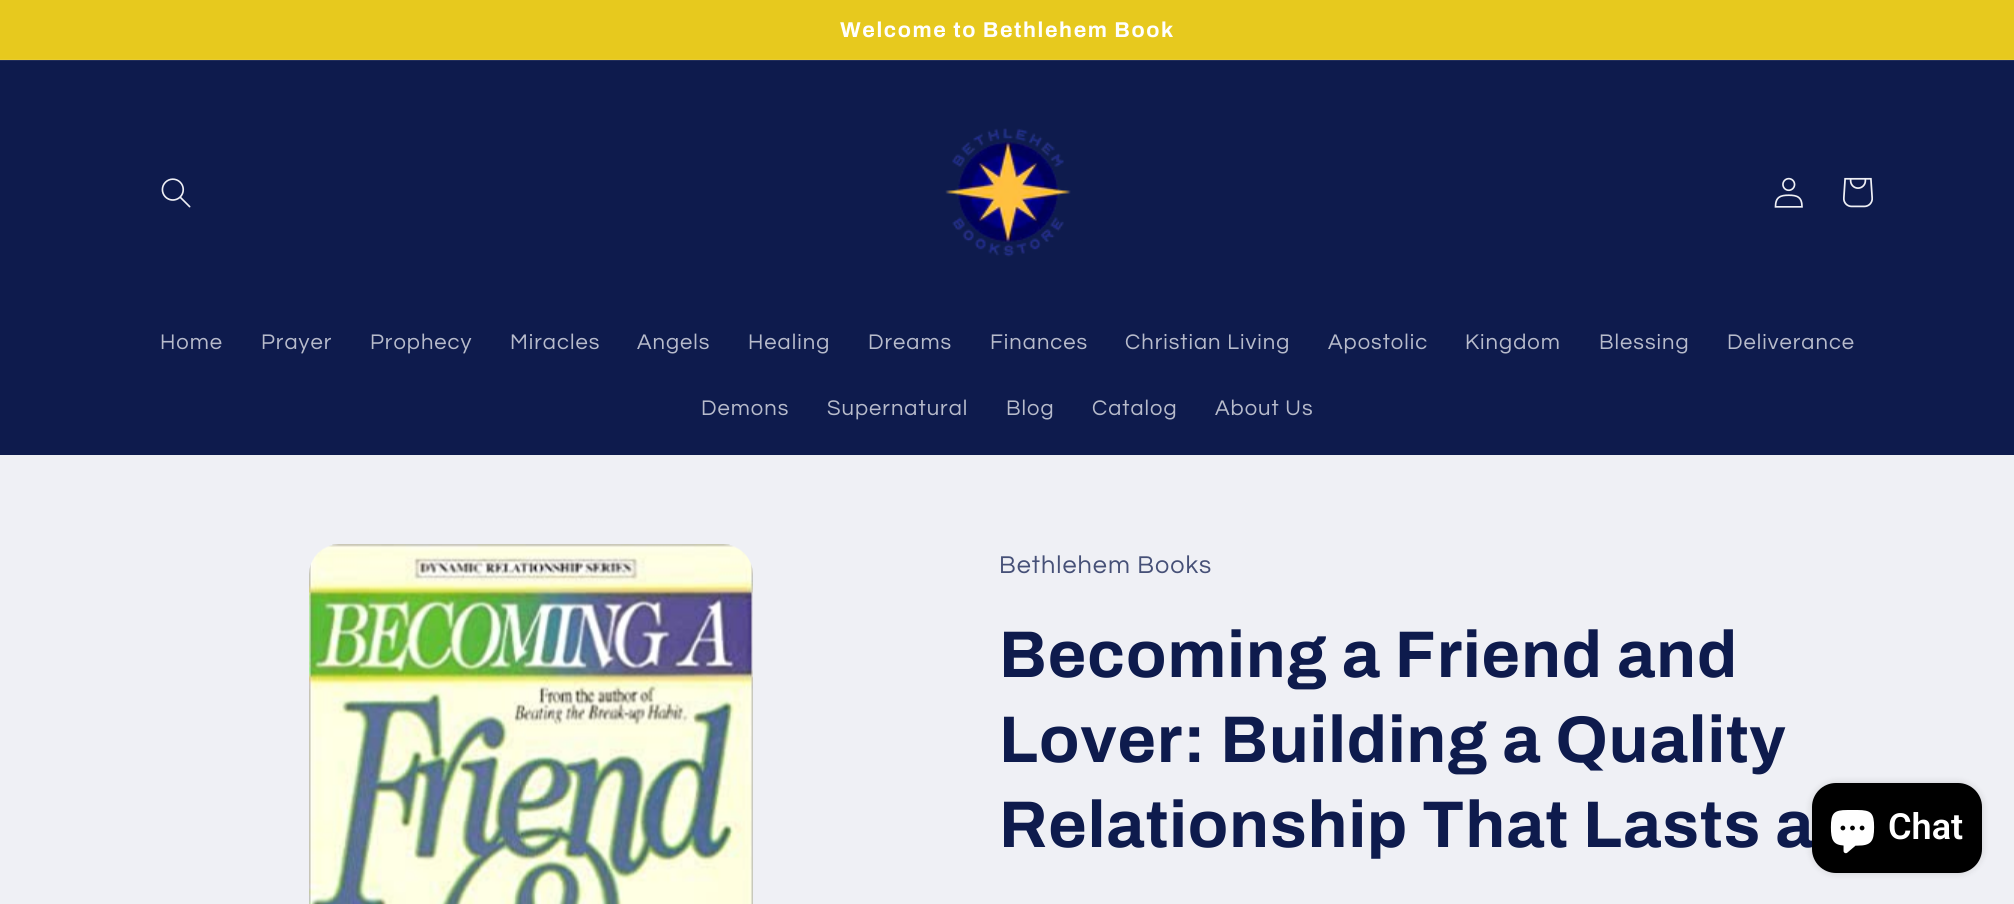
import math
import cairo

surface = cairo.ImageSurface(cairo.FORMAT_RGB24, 2014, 904)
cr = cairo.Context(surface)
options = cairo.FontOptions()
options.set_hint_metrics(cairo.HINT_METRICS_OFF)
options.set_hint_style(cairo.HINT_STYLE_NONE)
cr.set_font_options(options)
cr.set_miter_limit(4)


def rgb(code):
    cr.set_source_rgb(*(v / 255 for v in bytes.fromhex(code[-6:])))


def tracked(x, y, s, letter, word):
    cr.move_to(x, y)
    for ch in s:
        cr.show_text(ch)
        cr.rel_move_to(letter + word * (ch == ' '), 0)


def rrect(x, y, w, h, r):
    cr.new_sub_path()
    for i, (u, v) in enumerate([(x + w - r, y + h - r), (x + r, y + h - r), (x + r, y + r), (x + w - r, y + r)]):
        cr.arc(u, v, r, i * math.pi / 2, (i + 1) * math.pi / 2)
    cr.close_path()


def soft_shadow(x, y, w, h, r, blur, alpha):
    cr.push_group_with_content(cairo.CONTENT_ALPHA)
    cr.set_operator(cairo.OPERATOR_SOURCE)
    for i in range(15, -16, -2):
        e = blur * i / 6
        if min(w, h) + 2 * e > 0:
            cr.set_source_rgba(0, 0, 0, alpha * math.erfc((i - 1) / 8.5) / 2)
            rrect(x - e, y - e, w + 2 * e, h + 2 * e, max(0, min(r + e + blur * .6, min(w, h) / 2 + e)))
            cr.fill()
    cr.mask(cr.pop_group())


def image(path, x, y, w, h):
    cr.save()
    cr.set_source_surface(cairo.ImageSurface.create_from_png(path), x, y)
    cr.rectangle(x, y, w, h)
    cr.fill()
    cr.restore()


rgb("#eff0f5")
cr.paint()
for x, y, w, h, color in [
    (0, 0, 2014, 59, "#e7c91e"),
    (0, 59, 2014, 1, "#e9cd30"),
    (0, 61, 2014, 394, "#0e1b4d"),
    (0, 60, 2014, 1, "#212d5b"),
]:
    rgb(color)
    cr.rectangle(x, y, w, h)
    cr.fill()
image("img/1.png", 161, 178, 30, 30)
image("img/2.png", 945, 128, 126, 129)
image("img/3.png", 1774, 177, 29, 31)
image("img/4.png", 1843, 177, 30, 31)
image("img/5.png", 309, 544, 444, 360)
rgb("#000000")
soft_shadow(1812, 783, 170, 90, 24, 4, 0.15)
cr.select_font_face("Archivo", cairo.FONT_SLANT_NORMAL, cairo.FONT_WEIGHT_BOLD)
cr.set_font_size(21.5)
rgb("#ffffff")
tracked(840, 37, "Welcome to Bethlehem Book", 1.6, 0)
cr.select_font_face("Questrial")
cr.set_font_size(22)
rgb("#b7bbcb")
for x, y, s in [
    (160, 349, "Home"),
    (261, 349, "Prayer"),
    (370, 349, "Prophecy"),
    (510, 349, "Miracles"),
    (637, 349, "Angels"),
    (748, 349, "Healing"),
    (868, 349, "Dreams"),
    (990, 349, "Finances"),
    (1125, 349, "Christian Living"),
    (1328, 349, "Apostolic"),
    (1465, 349, "Kingdom"),
    (1599, 349, "Blessing"),
    (1727, 349, "Deliverance"),
    (701, 415, "Demons"),
    (827, 415, "Supernatural"),
    (1006, 415, "Blog"),
    (1092, 415, "Catalog"),
    (1215, 415, "About Us"),
]:
    tracked(x, y, s, 1, 0)
cr.set_font_size(25.25)
rgb("#465077")
tracked(999, 573, "Bethlehem Books", 1, 0)
cr.select_font_face("Archivo", cairo.FONT_SLANT_NORMAL, cairo.FONT_WEIGHT_BOLD)
cr.set_font_size(66)
rgb("#0e1b4d")
for x, y, s in [
    (999, 677, "Becoming a Friend and"),
    (999, 762, "Lover: Building a Quality"),
    (999, 847, "Relationship That Lasts a"),
]:
    tracked(x, y, s, 1, 0)
rgb("#000000")
rrect(1812, 783, 170, 90, 24)
cr.fill()
image("img/6.png", 1830, 810, 45, 44)
cr.select_font_face("Roboto SemiBold")
cr.set_font_size(36)
rgb("#ffffff")
cr.move_to(1888, 839)
cr.show_text("Chat")
surface.write_to_png("page.png")
